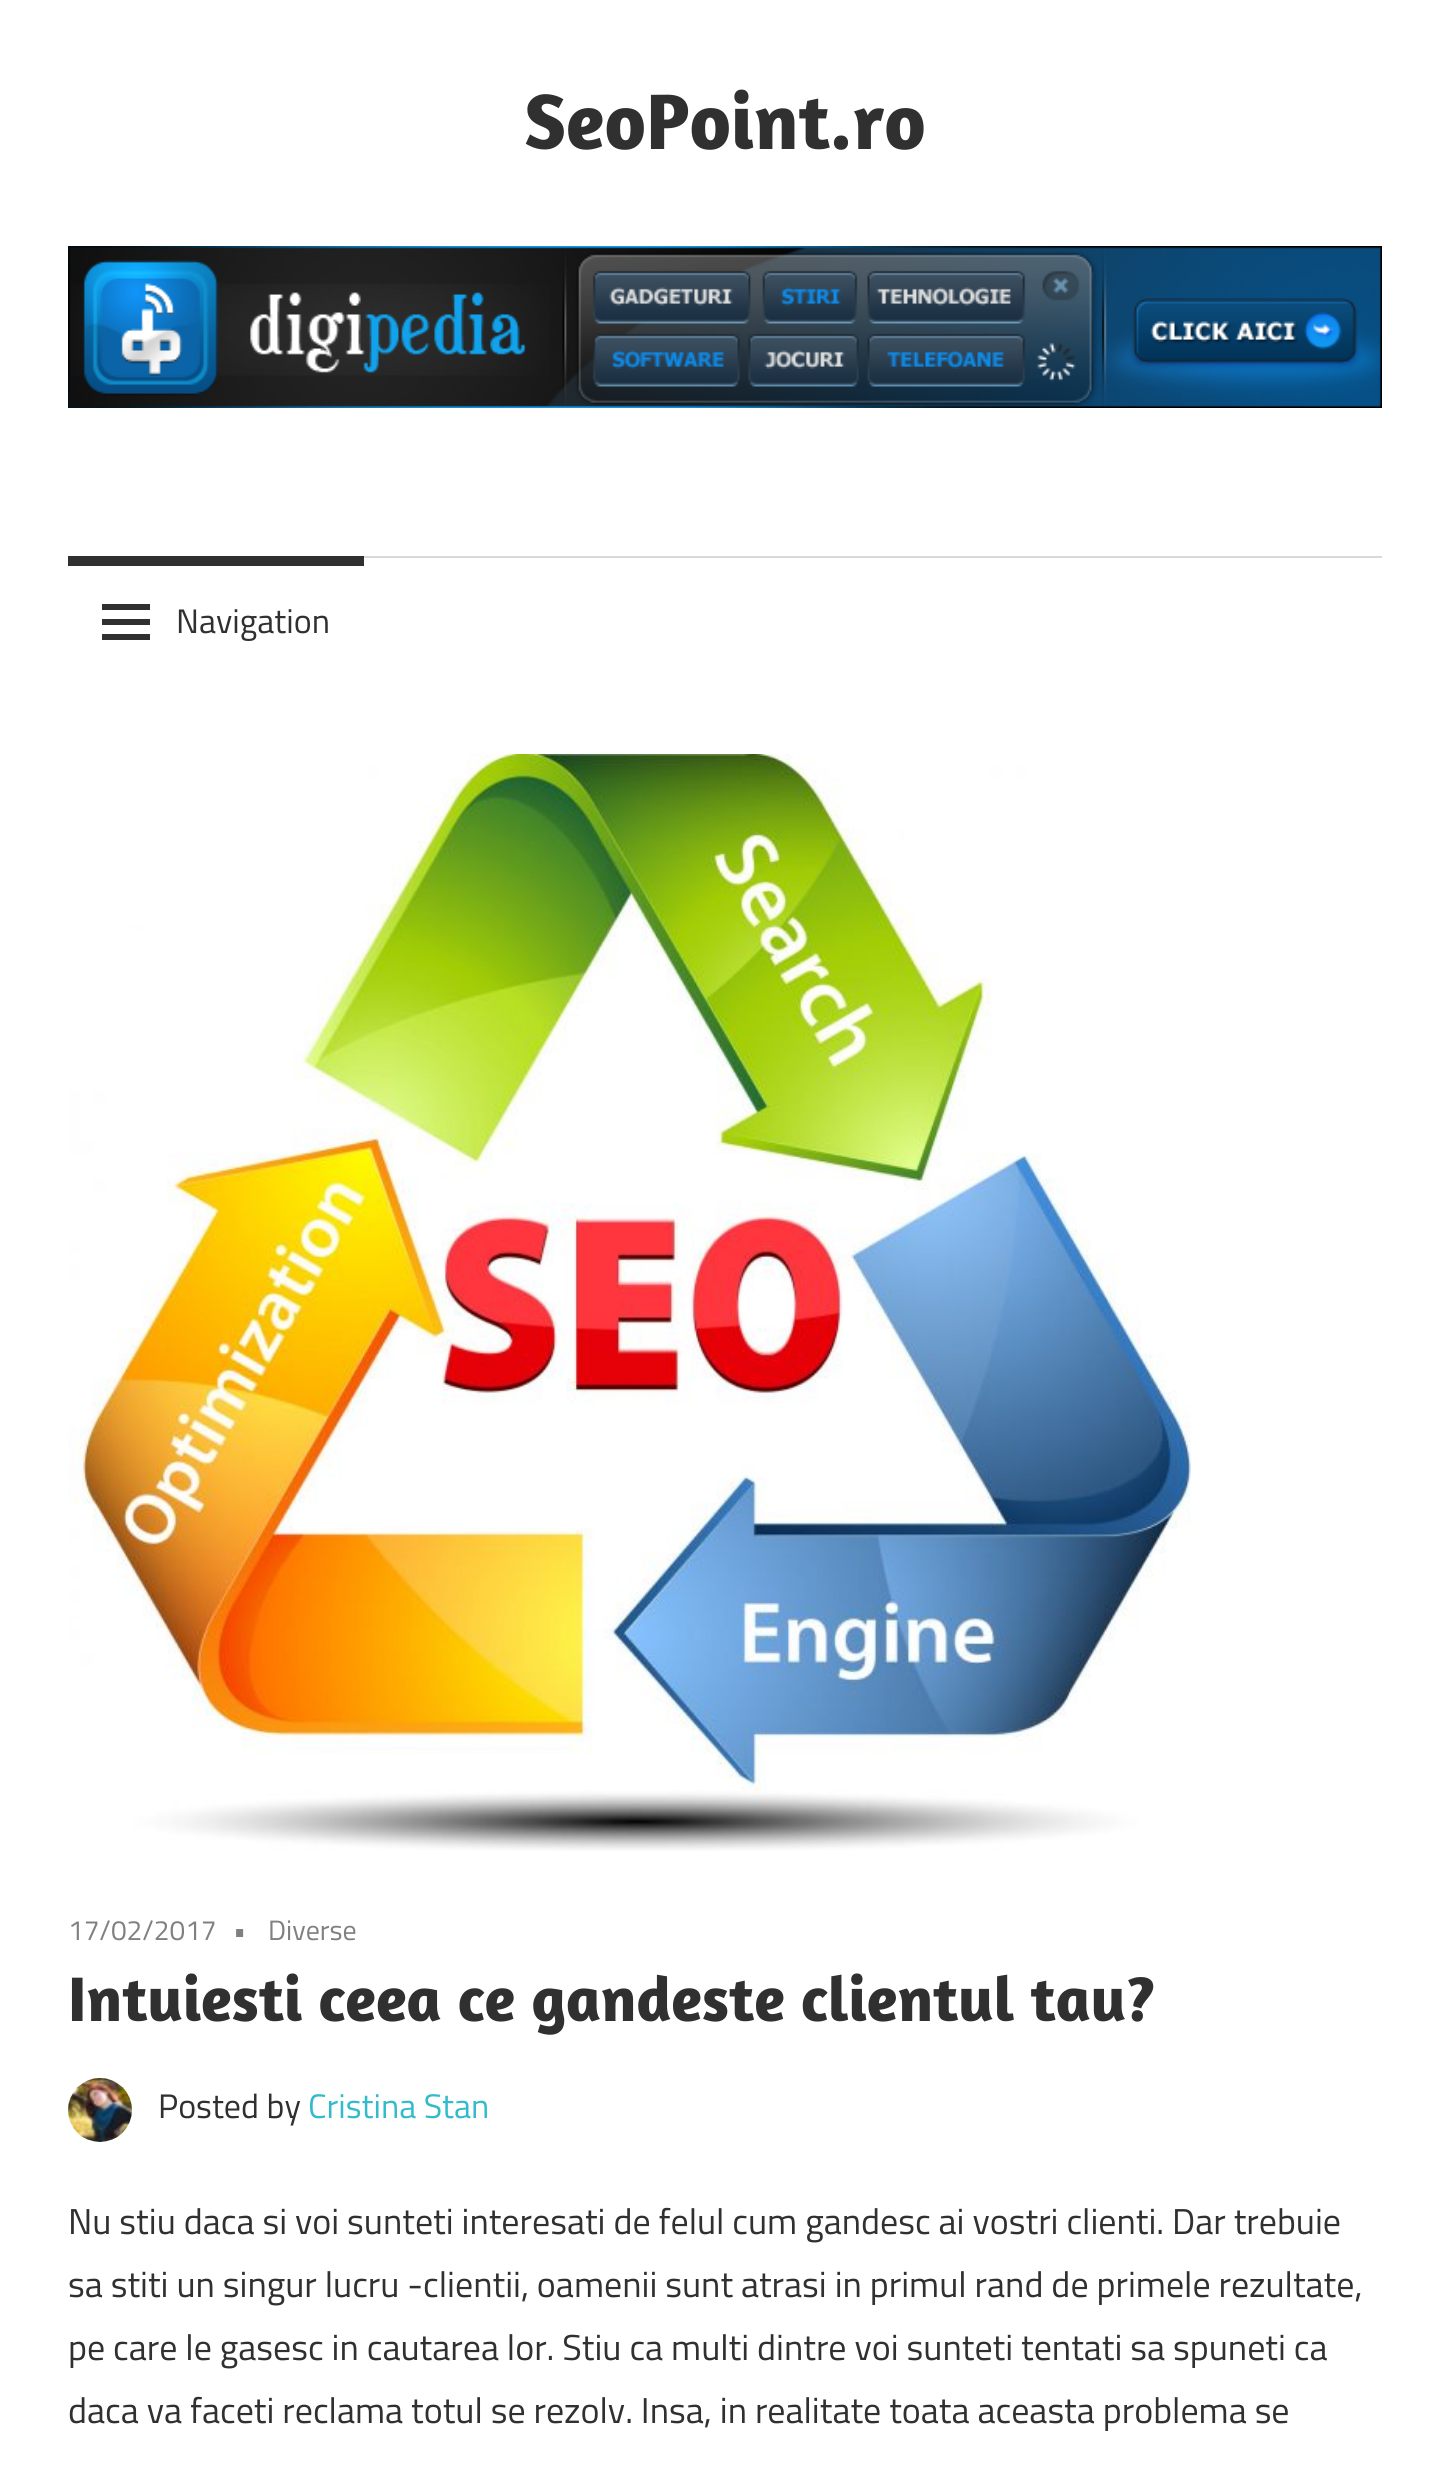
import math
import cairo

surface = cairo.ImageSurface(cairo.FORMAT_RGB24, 1450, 2476)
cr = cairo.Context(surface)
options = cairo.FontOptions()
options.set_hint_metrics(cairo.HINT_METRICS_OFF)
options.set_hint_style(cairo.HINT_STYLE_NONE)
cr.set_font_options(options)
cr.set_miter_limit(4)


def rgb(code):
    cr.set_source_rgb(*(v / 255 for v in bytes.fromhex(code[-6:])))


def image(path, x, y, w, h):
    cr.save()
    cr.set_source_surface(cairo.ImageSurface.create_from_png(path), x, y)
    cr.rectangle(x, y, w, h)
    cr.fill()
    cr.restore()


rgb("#ffffff")
cr.paint()
image("img/1.png", 68, 246, 1314, 162)
rgb("#d9d9d9")
cr.rectangle(364, 556, 1018, 2)
cr.fill()
rgb("#303030")
cr.rectangle(68, 556, 296, 10)
cr.fill()
image("img/2.png", 102, 604, 48, 36)
image("img/3.png", 68, 754, 1124, 1097)
image("img/4.png", 68, 2078, 64, 64)
cr.select_font_face("Amaranth", cairo.FONT_SLANT_NORMAL, cairo.FONT_WEIGHT_BOLD)
cr.set_font_size(80)
cr.move_to(524, 149)
cr.show_text("SeoPoint.ro")
cr.select_font_face("Titillium Web")
cr.set_font_size(34)
cr.move_to(176, 633)
cr.show_text("Navigation")
cr.set_font_size(28)
rgb("#808080")
for x, y, s in [
    (68, 1940, "17/02/2017"),
    (233, 1940, "•"),
    (268, 1940, "Diverse"),
]:
    cr.move_to(x, y)
    cr.show_text(s)
cr.select_font_face("Amaranth", cairo.FONT_SLANT_NORMAL, cairo.FONT_WEIGHT_BOLD)
cr.set_font_size(64)
rgb("#303030")
cr.move_to(68, 2021)
cr.show_text("Intuiesti ceea ce gandeste clientul tau?")
cr.select_font_face("Titillium Web")
cr.set_font_size(34)
cr.move_to(158, 2118)
cr.show_text("Posted by")
rgb("#33bbcc")
cr.move_to(308, 2118)
cr.show_text("Cristina Stan")
cr.set_font_size(36)
rgb("#303030")
for x, y, s in [
    (68, 2234, "Nu stiu daca si voi sunteti interesati de felul cum gandesc ai vostri clienti. Dar trebuie"),
    (68, 2297, "sa stiti un singur lucru -clientii, oamenii sunt atrasi in primul rand de primele rezultate,"),
    (68, 2360, "pe care le gasesc in cautarea lor. Stiu ca multi dintre voi sunteti tentati sa spuneti ca"),
    (68, 2423, "daca va faceti reclama totul se rezolv. Insa, in realitate toata aceasta problema se"),
]:
    cr.move_to(x, y)
    cr.show_text(s)
surface.write_to_png("page.png")
